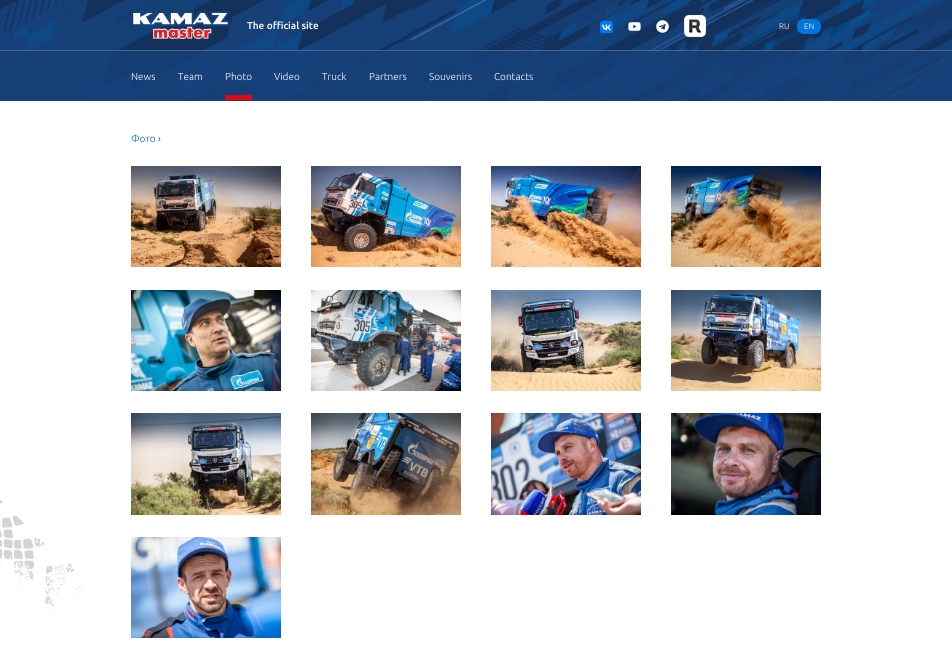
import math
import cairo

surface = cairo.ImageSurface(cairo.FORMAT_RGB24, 952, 661)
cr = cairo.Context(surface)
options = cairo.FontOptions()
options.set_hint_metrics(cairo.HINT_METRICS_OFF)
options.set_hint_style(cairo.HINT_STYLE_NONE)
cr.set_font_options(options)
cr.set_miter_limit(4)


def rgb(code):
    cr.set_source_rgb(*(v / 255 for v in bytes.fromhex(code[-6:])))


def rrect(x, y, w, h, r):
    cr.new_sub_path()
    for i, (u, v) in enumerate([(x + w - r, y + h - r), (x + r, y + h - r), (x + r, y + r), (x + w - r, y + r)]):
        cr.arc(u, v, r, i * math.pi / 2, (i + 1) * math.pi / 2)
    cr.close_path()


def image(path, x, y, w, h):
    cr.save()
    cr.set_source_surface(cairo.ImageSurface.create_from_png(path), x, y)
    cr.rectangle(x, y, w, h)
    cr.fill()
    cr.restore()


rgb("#ffffff")
cr.paint()
image("img/1.png", 0, 0, 952, 101)
image("img/2.png", 131, 11, 100, 28)
image("img/3.png", 600, 20, 13, 13)
image("img/4.png", 628, 22, 13, 9)
image("img/5.png", 656, 20, 13, 13)
image("img/6.png", 684, 15, 22, 22)
rgb("#0074df")
rrect(797, 19, 24, 15, 7)
cr.fill()
cr.set_source_rgba(0.09, 0.251, 0.475, 0.8)
cr.rectangle(0, 50, 952, 51)
cr.fill()
cr.set_source_rgba(1, 1, 1, 0.2)
cr.rectangle(0, 50, 952, 1)
cr.fill()
rgb("#e0070e")
cr.rectangle(225, 95, 27, 5)
cr.fill()
image("img/7.png", 131, 166, 150, 101)
image("img/8.png", 311, 166, 150, 101)
image("img/9.png", 491, 166, 150, 101)
image("img/10.png", 671, 166, 150, 101)
image("img/11.png", 131, 290, 150, 101)
image("img/12.png", 311, 290, 150, 101)
image("img/13.png", 491, 290, 150, 101)
image("img/14.png", 671, 290, 150, 101)
image("img/15.png", 131, 413, 150, 102)
image("img/16.png", 311, 413, 150, 102)
image("img/17.png", 491, 413, 150, 102)
image("img/18.png", 671, 413, 150, 102)
image("img/19.png", 131, 537, 150, 101)
image("img/20.png", 0, 499, 84, 113)
cr.select_font_face("Ubuntu Medium")
cr.set_font_size(10)
rgb("#ffffff")
cr.move_to(247, 29)
cr.show_text("The official site")
cr.select_font_face("Ubuntu Light")
cr.set_font_size(8)
cr.move_to(779, 29)
cr.show_text("RU")
cr.move_to(804, 29)
cr.show_text("EN")
cr.set_font_size(10)
for x, y, s in [
    (131, 80, "News"),
    (178, 80, "Team"),
    (225, 80, "Photo"),
    (274, 80, "Video"),
    (322, 80, "Truck"),
    (369, 80, "Partners"),
    (429, 80, "Souvenirs"),
    (494, 80, "Contacts"),
]:
    cr.move_to(x, y)
    cr.show_text(s)
rgb("#0167bb")
cr.move_to(131, 142)
cr.show_text("Фото")
rgb("#212529")
cr.move_to(158, 142)
cr.show_text("›")
surface.write_to_png("page.png")
